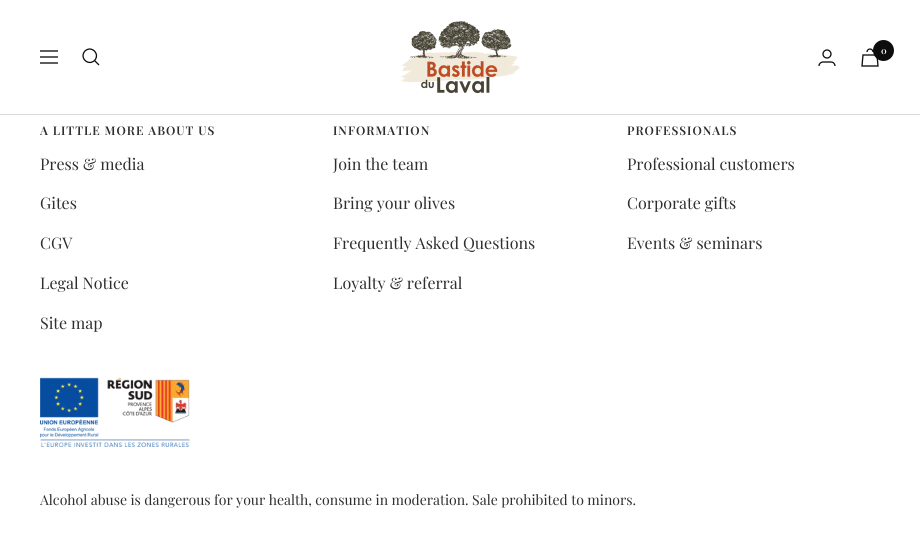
import math
import cairo

surface = cairo.ImageSurface(cairo.FORMAT_RGB24, 920, 558)
cr = cairo.Context(surface)
options = cairo.FontOptions()
options.set_hint_metrics(cairo.HINT_METRICS_OFF)
options.set_hint_style(cairo.HINT_STYLE_NONE)
cr.set_font_options(options)
cr.set_miter_limit(4)


def rgb(code):
    cr.set_source_rgb(*(v / 255 for v in bytes.fromhex(code[-6:])))


def tracked(x, y, s, letter, word):
    cr.move_to(x, y)
    for ch in s:
        cr.show_text(ch)
        cr.rel_move_to(letter + word * (ch == ' '), 0)


def image(path, x, y, w, h):
    cr.save()
    cr.set_source_surface(cairo.ImageSurface.create_from_png(path), x, y)
    cr.rectangle(x, y, w, h)
    cr.fill()
    cr.restore()


rgb("#ffffff")
cr.paint()
rgb("#dbdbdb")
cr.rectangle(0, 114, 920, 1)
cr.fill()
cr.new_path()
cr.move_to(40, 51)
cr.line_to(58, 51)
cr.move_to(40, 63)
cr.line_to(58, 63)
cr.close_path()
cr.move_to(40, 57)
cr.line_to(58, 57)
cr.close_path()
cr.move_to(94.5, 60.5)
cr.curve_to(100.5, 54, 91.5, 45, 85, 51)
cr.curve_to(79, 57.5, 88, 66.5, 94.5, 60.5)
cr.close_path()
cr.move_to(94.5, 60.5)
cr.line_to(99, 65)
rgb("#0d0d0d")
cr.set_line_width(1.3)
cr.stroke()
image("img/1.png", 400, 21, 120, 72)
image("img/2.png", 818, 49, 18, 17)
image("img/3.png", 861, 48, 18, 19)
cr.arc(883.5, 50.5, 10.5, 0, 2 * math.pi)
cr.fill()
image("img/4.png", 40, 377, 150, 70)
cr.select_font_face("Playfair Display SemiBold")
cr.set_font_size(9)
rgb("#ffffff")
cr.move_to(881, 54)
cr.show_text("0")
cr.set_font_size(12)
rgb("#2e2e2e")
tracked(40, 135, "A LITTLE MORE ABOUT US", 1, 0)
cr.select_font_face("Playfair Display")
cr.set_font_size(16)
for x, y, s in [
    (40, 170, "Press & media"),
    (40, 209, "Gites"),
    (40, 249, "CGV"),
    (40, 289, "Legal Notice"),
    (40, 329, "Site map"),
]:
    cr.move_to(x, y)
    cr.show_text(s)
cr.select_font_face("Playfair Display SemiBold")
cr.set_font_size(12)
tracked(333, 135, "INFORMATION", 1, 0)
cr.select_font_face("Playfair Display")
cr.set_font_size(16)
for x, y, s in [
    (333, 170, "Join the team"),
    (333, 209, "Bring your olives"),
    (333, 249, "Frequently Asked Questions"),
    (333, 289, "Loyalty & referral"),
]:
    cr.move_to(x, y)
    cr.show_text(s)
cr.select_font_face("Playfair Display SemiBold")
cr.set_font_size(12)
tracked(627, 135, "PROFESSIONALS", 1, 0)
cr.select_font_face("Playfair Display")
cr.set_font_size(16)
for x, y, s in [
    (627, 170, "Professional customers"),
    (627, 209, "Corporate gifts"),
    (627, 249, "Events & seminars"),
]:
    cr.move_to(x, y)
    cr.show_text(s)
cr.set_font_size(14)
cr.move_to(40, 505)
cr.show_text("Alcohol abuse is dangerous for your health, consume in moderation. Sale prohibited to minors.")
surface.write_to_png("page.png")
